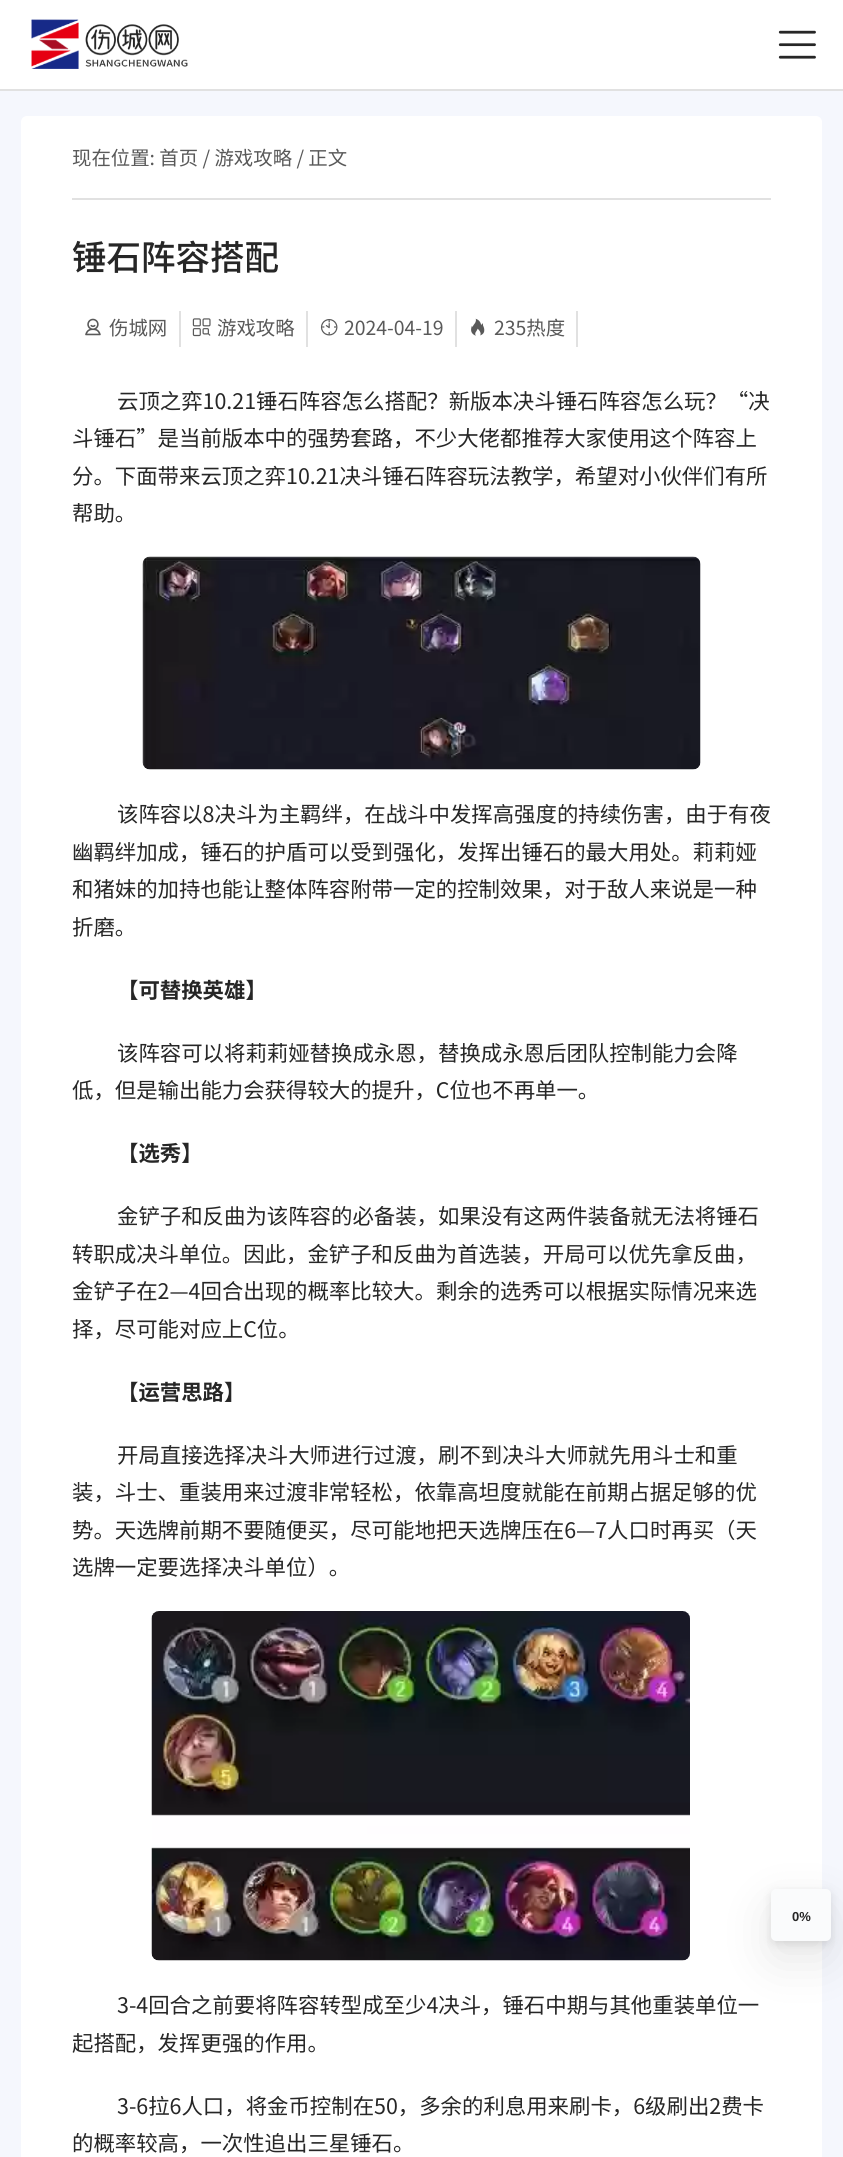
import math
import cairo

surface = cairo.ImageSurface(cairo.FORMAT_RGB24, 843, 2157)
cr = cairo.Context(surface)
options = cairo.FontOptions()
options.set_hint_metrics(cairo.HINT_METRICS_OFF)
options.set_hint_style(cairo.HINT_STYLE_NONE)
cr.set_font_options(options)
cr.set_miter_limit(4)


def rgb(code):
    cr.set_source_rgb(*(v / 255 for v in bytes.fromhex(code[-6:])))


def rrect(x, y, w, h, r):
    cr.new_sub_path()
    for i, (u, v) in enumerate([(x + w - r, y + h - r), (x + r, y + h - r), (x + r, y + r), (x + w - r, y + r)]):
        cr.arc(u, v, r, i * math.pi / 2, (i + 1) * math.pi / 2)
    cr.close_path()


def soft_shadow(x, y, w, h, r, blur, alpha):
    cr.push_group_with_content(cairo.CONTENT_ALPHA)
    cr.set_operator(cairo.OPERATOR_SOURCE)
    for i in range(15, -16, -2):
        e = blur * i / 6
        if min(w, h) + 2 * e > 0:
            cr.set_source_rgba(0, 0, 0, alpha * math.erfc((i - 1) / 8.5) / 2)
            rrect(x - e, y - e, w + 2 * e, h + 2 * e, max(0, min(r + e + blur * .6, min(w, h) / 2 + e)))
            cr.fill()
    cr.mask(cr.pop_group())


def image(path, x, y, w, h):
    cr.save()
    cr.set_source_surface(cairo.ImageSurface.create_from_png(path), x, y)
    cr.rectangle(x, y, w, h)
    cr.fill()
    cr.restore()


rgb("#f5f7fd")
cr.paint()
rgb("#ffffff")
cr.rectangle(0, 0, 843, 89)
cr.fill()
rgb("#e1e1e1")
cr.rectangle(0, 89, 843, 2)
cr.fill()
image("img/1.png", 31, 19, 157, 50)
image("img/2.png", 778, 30, 38, 29)
rgb("#ffffff")
rrect(21, 116, 801, 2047, 6)
cr.fill()
rgb("#e1e1e1")
cr.rectangle(72, 198, 699, 2)
cr.fill()
cr.rectangle(179, 311, 2, 36)
cr.fill()
image("img/3.png", 85, 318, 16, 18)
cr.rectangle(306, 311, 2, 36)
cr.fill()
image("img/4.png", 192, 318, 19, 19)
cr.rectangle(455, 311, 2, 36)
cr.fill()
image("img/5.png", 320, 319, 18, 17)
cr.rectangle(576, 311, 2, 36)
cr.fill()
image("img/6.png", 471, 318, 14, 18)
image("img/7.png", 142, 556, 559, 214)
image("img/8.png", 151, 1611, 539, 350)
rgb("#000000")
soft_shadow(771, 1892, 60, 52, 5, 4.5, 0.1)
soft_shadow(771, 1907, 60, 52, 5, 24, 0.1)
rgb("#fafbfc")
rrect(771, 1889, 60, 52, 5)
cr.fill()
cr.select_font_face("Noto Sans CJK SC")
cr.set_font_size(19.4)
rgb("#595959")
cr.move_to(72, 165)
cr.show_text("现在位置: 首页 / 游戏攻略 / 正文")
cr.select_font_face("Noto Sans CJK SC Medium")
cr.set_font_size(34.5)
rgb("#262626")
cr.move_to(72, 270)
cr.show_text("锤石阵容搭配")
cr.select_font_face("Noto Sans CJK SC")
cr.set_font_size(19.4)
rgb("#595959")
for x, y, s in [
    (109, 335, "伤城网"),
    (217, 335, "游戏攻略"),
    (344, 335, "2024-04-19"),
    (494, 335, "235热度"),
]:
    cr.move_to(x, y)
    cr.show_text(s)
cr.set_font_size(21.4)
rgb("#262626")
for x, y, s in [
    (117, 409, "云顶之弈10.21锤石阵容怎么搭配？新版本决斗锤石阵容怎么玩？“决"),
    (72, 446, "斗锤石”是当前版本中的强势套路，不少大佬都推荐大家使用这个阵容上"),
    (72, 484, "分。下面带来云顶之弈10.21决斗锤石阵容玩法教学，希望对小伙伴们有所"),
    (72, 521, "帮助。"),
    (117, 822, "该阵容以8决斗为主羁绊，在战斗中发挥高强度的持续伤害，由于有夜"),
    (72, 860, "幽羁绊加成，锤石的护盾可以受到强化，发挥出锤石的最大用处。莉莉娅"),
    (72, 897, "和猪妹的加持也能让整体阵容附带一定的控制效果，对于敌人来说是一种"),
    (72, 935, "折磨。"),
]:
    cr.move_to(x, y)
    cr.show_text(s)
cr.select_font_face("Noto Sans CJK SC", cairo.FONT_SLANT_NORMAL, cairo.FONT_WEIGHT_BOLD)
cr.move_to(117, 998)
cr.show_text("【可替换英雄】")
cr.select_font_face("Noto Sans CJK SC")
cr.move_to(117, 1061)
cr.show_text("该阵容可以将莉莉娅替换成永恩，替换成永恩后团队控制能力会降")
cr.move_to(72, 1098)
cr.show_text("低，但是输出能力会获得较大的提升，C位也不再单一。")
cr.select_font_face("Noto Sans CJK SC", cairo.FONT_SLANT_NORMAL, cairo.FONT_WEIGHT_BOLD)
cr.move_to(117, 1161)
cr.show_text("【选秀】")
cr.select_font_face("Noto Sans CJK SC")
for x, y, s in [
    (117, 1224, "金铲子和反曲为该阵容的必备装，如果没有这两件装备就无法将锤石"),
    (72, 1262, "转职成决斗单位。因此，金铲子和反曲为首选装，开局可以优先拿反曲，"),
    (72, 1299, "金铲子在2—4回合出现的概率比较大。剩余的选秀可以根据实际情况来选"),
    (72, 1337, "择，尽可能对应上C位。"),
]:
    cr.move_to(x, y)
    cr.show_text(s)
cr.select_font_face("Noto Sans CJK SC", cairo.FONT_SLANT_NORMAL, cairo.FONT_WEIGHT_BOLD)
cr.move_to(117, 1400)
cr.show_text("【运营思路】")
cr.select_font_face("Noto Sans CJK SC")
for x, y, s in [
    (117, 1463, "开局直接选择决斗大师进行过渡，刷不到决斗大师就先用斗士和重"),
    (72, 1500, "装，斗士、重装用来过渡非常轻松，依靠高坦度就能在前期占据足够的优"),
    (72, 1538, "势。天选牌前期不要随便买，尽可能地把天选牌压在6—7人口时再买（天"),
    (72, 1575, "选牌一定要选择决斗单位）。"),
    (117, 2013, "3-4回合之前要将阵容转型成至少4决斗，锤石中期与其他重装单位一"),
    (72, 2051, "起搭配，发挥更强的作用。"),
    (117, 2114, "3-6拉6人口，将金币控制在50，多余的利息用来刷卡，6级刷出2费卡"),
    (72, 2151, "的概率较高，一次性追出三星锤石。"),
]:
    cr.move_to(x, y)
    cr.show_text(s)
cr.select_font_face("Liberation Sans", cairo.FONT_SLANT_NORMAL, cairo.FONT_WEIGHT_BOLD)
cr.set_font_size(13)
cr.move_to(792, 1921)
cr.show_text("0%")
surface.write_to_png("page.png")
